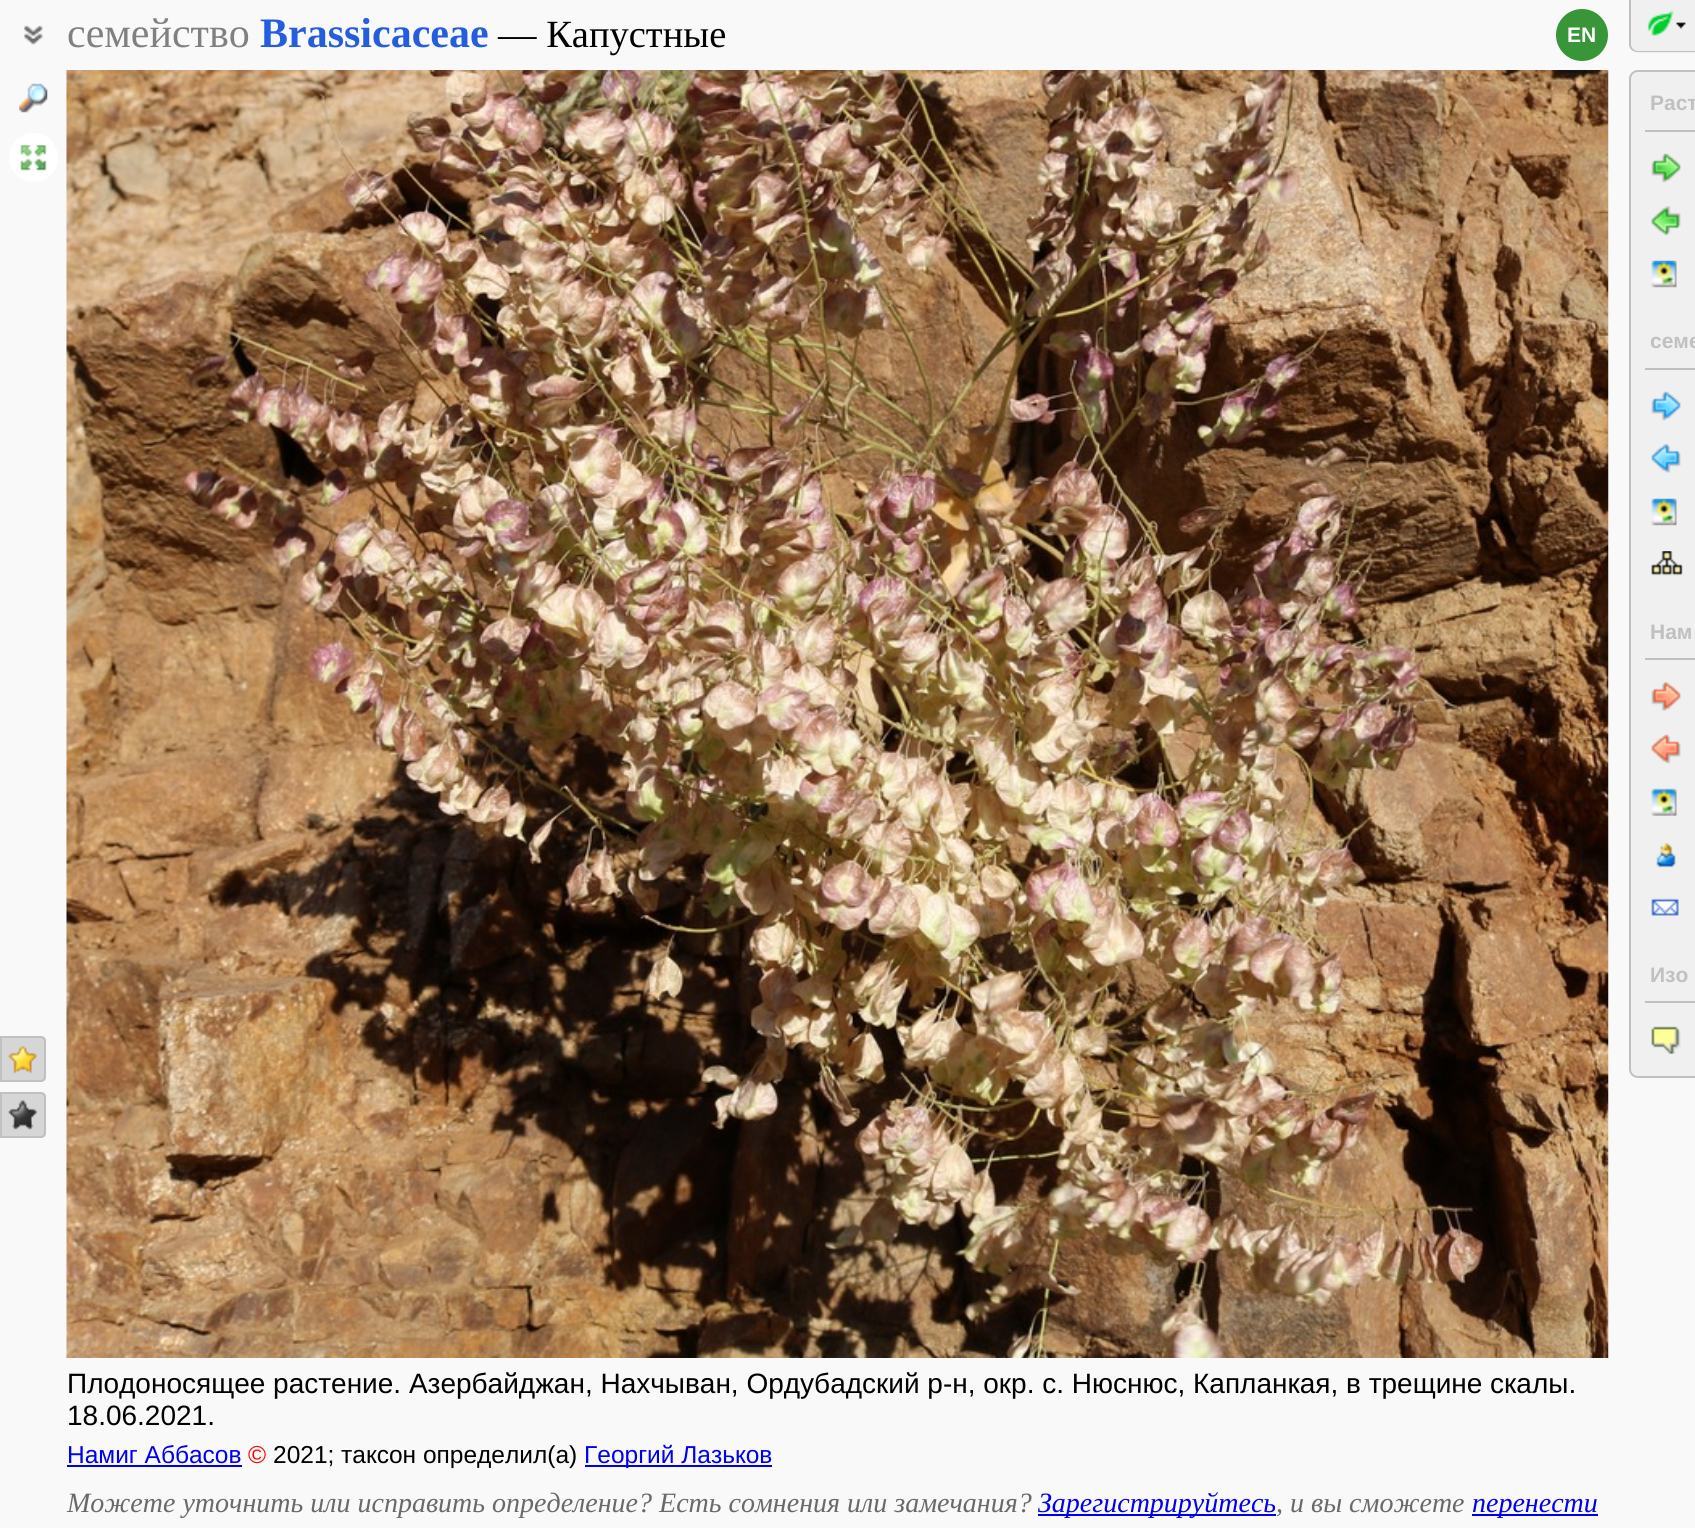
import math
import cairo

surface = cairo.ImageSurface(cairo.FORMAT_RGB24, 1695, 1528)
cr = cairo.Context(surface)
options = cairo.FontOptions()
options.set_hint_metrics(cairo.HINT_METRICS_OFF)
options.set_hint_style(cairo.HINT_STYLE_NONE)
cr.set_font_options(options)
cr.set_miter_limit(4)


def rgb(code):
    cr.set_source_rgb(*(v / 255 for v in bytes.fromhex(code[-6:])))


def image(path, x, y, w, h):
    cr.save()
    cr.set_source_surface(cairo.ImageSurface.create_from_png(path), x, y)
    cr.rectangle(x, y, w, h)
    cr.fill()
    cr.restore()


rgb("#f9f9f9")
cr.paint()
image("img/1.png", 24, 25, 19, 20)
rgb("#389638")
cr.arc(1582, 35, 26, 0, 2 * math.pi)
cr.fill()
image("img/2.png", 19, 83, 29, 30)
rgb("#ffffff")
cr.arc(33.5, 157.5, 24.5, 0, 2 * math.pi)
cr.fill()
image("img/3.png", 20, 144, 27, 27)
rgb("#d6d6d6")
cr.new_path()
cr.move_to(0, 1036)
cr.line_to(41, 1036)
cr.curve_to(44, 1036, 46, 1038, 46, 1041)
cr.line_to(46, 1077)
cr.curve_to(46, 1080, 44, 1082, 41, 1082)
cr.line_to(0, 1082)
cr.close_path()
cr.fill()
image("img/4.png", 8, 1045, 29, 29)
cr.new_path()
cr.move_to(1, 1037)
cr.line_to(41, 1037)
cr.curve_to(43, 1037, 45, 1039, 45, 1041)
cr.line_to(45, 1077)
cr.curve_to(45, 1079, 43, 1081, 41, 1081)
cr.line_to(1, 1081)
cr.close_path()
rgb("#c0c0c0")
cr.stroke()
rgb("#d6d6d6")
cr.new_path()
cr.move_to(0, 1092)
cr.line_to(41, 1092)
cr.curve_to(44, 1092, 46, 1094, 46, 1097)
cr.line_to(46, 1133)
cr.curve_to(46, 1136, 44, 1138, 41, 1138)
cr.line_to(0, 1138)
cr.close_path()
cr.fill()
image("img/5.png", 8, 1100, 29, 30)
cr.new_path()
cr.move_to(1, 1093)
cr.line_to(41, 1093)
cr.curve_to(43, 1093, 45, 1095, 45, 1097)
cr.line_to(45, 1133)
cr.curve_to(45, 1135, 43, 1137, 41, 1137)
cr.line_to(1, 1137)
cr.close_path()
rgb("#c0c0c0")
cr.stroke()
rgb("#f0f0f0")
cr.new_path()
cr.move_to(1629, 0)
cr.line_to(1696, 0)
cr.line_to(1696, 53)
cr.line_to(1638, 53)
cr.curve_to(1633, 53, 1629, 49, 1629, 44)
cr.close_path()
cr.fill()
image("img/6.png", 1647, 10, 27, 26)
rgb("#c0c0c0")
cr.set_fill_rule(cairo.FILL_RULE_EVEN_ODD)
cr.new_path()
cr.move_to(1629, 0)
cr.line_to(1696, 0)
cr.line_to(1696, 52)
cr.line_to(1638, 52)
cr.curve_to(1633, 52, 1629, 49, 1629, 44)
cr.close_path()
cr.move_to(1631, 0)
cr.line_to(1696, 0)
cr.line_to(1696, 51)
cr.line_to(1638, 51)
cr.curve_to(1634, 51, 1631, 48, 1631, 44)
cr.close_path()
cr.fill()
image("img/7.png", 1676, 22, 10, 7)
rgb("#f0f0f0")
cr.new_path()
cr.move_to(1638, 70)
cr.line_to(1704, 70)
cr.line_to(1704, 1078)
cr.line_to(1638, 1078)
cr.curve_to(1633, 1078, 1629, 1074, 1629, 1069)
cr.line_to(1629, 79)
cr.curve_to(1629, 74, 1633, 70, 1638, 70)
cr.close_path()
cr.fill()
rgb("#c0c0c0")
cr.new_path()
cr.move_to(1638, 70)
cr.line_to(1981, 70)
cr.line_to(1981, 1078)
cr.line_to(1638, 1078)
cr.curve_to(1633, 1078, 1629, 1074, 1629, 1069)
cr.line_to(1629, 79)
cr.curve_to(1629, 74, 1633, 70, 1638, 70)
cr.close_path()
cr.move_to(1638, 72)
cr.line_to(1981, 72)
cr.line_to(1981, 1076)
cr.line_to(1638, 1076)
cr.curve_to(1634, 1076, 1631, 1073, 1631, 1069)
cr.line_to(1631, 79)
cr.curve_to(1631, 75, 1634, 72, 1638, 72)
cr.close_path()
cr.fill()
cr.rectangle(1645, 130, 50, 2)
cr.fill()
image("img/8.png", 1651, 153, 30, 30)
image("img/9.png", 1651, 206, 30, 30)
image("img/10.png", 1651, 260, 26, 28)
cr.rectangle(1645, 368, 50, 2)
cr.fill()
image("img/11.png", 1651, 391, 30, 30)
image("img/12.png", 1651, 444, 30, 29)
image("img/10.png", 1651, 498, 26, 28)
image("img/13.png", 1651, 551, 32, 25)
cr.rectangle(1645, 658, 50, 2)
cr.fill()
image("img/14.png", 1651, 681, 30, 30)
image("img/15.png", 1651, 734, 30, 30)
image("img/16.png", 1651, 788, 26, 28)
image("img/17.png", 1656, 842, 20, 26)
image("img/18.png", 1651, 898, 28, 18)
cr.rectangle(1645, 1001, 50, 2)
cr.fill()
image("img/19.png", 1651, 1026, 30, 28)
image("img/20.png", 66, 70, 1543, 1288)
for x, y, w, h, color in [
    (67, 1465, 175, 2, "#0000ee"),
    (585, 1465, 187, 2, "#0000ee"),
    (1038, 1514, 238, 2, "#0000ee"),
    (1472, 1514, 126, 2, "#0000ee"),
]:
    rgb(color)
    cr.rectangle(x, y, w, h)
    cr.fill()
cr.select_font_face("Liberation Serif")
cr.set_font_size(42)
rgb("#808080")
cr.move_to(67, 47)
cr.show_text("семейство")
cr.select_font_face("Liberation Serif", cairo.FONT_SLANT_NORMAL, cairo.FONT_WEIGHT_BOLD)
rgb("#245edc")
cr.move_to(260, 47)
cr.show_text("Brassicaceae")
cr.select_font_face("Liberation Serif")
cr.set_font_size(38.5)
rgb("#000000")
cr.move_to(498, 47)
cr.show_text("— Капустные")
cr.select_font_face("Liberation Sans", cairo.FONT_SLANT_NORMAL, cairo.FONT_WEIGHT_BOLD)
cr.set_font_size(21)
rgb("#fefefe")
cr.move_to(1567, 42)
cr.show_text("EN")
rgb("#c0c0c0")
for x, y, s in [
    (1650, 110, "Раст"),
    (1650, 348, "семе"),
    (1650, 639, "Нам"),
    (1650, 982, "Изо"),
]:
    cr.move_to(x, y)
    cr.show_text(s)
cr.select_font_face("Liberation Sans")
cr.set_font_size(28)
rgb("#000000")
cr.move_to(67, 1393)
cr.show_text("Плодоносящее растение. Азербайджан, Нахчыван, Ордубадский р-н, окр. c. Нюснюс, Капланкая, в трещине скалы.")
cr.move_to(67, 1425)
cr.show_text("18.06.2021.")
cr.set_font_size(24.5)
rgb("#0000ee")
cr.move_to(67, 1463)
cr.show_text("Намиг Аббасов")
rgb("#ff0000")
cr.move_to(248, 1463)
cr.show_text("©")
rgb("#000000")
cr.move_to(273, 1463)
cr.show_text("2021; таксон определил(а)")
rgb("#0000ee")
cr.move_to(584, 1463)
cr.show_text("Георгий Лазьков")
cr.select_font_face("Liberation Serif", cairo.FONT_SLANT_ITALIC)
cr.set_font_size(28)
rgb("#696969")
cr.move_to(67, 1512)
cr.show_text("Можете уточнить или исправить определение? Есть сомнения или замечания?")
rgb("#0000ee")
cr.move_to(1038, 1512)
cr.show_text("Зарегистрируйтесь")
rgb("#696969")
cr.move_to(1276, 1512)
cr.show_text(", и вы сможете")
rgb("#0000ee")
cr.move_to(1472, 1512)
cr.show_text("перенести")
surface.write_to_png("page.png")
